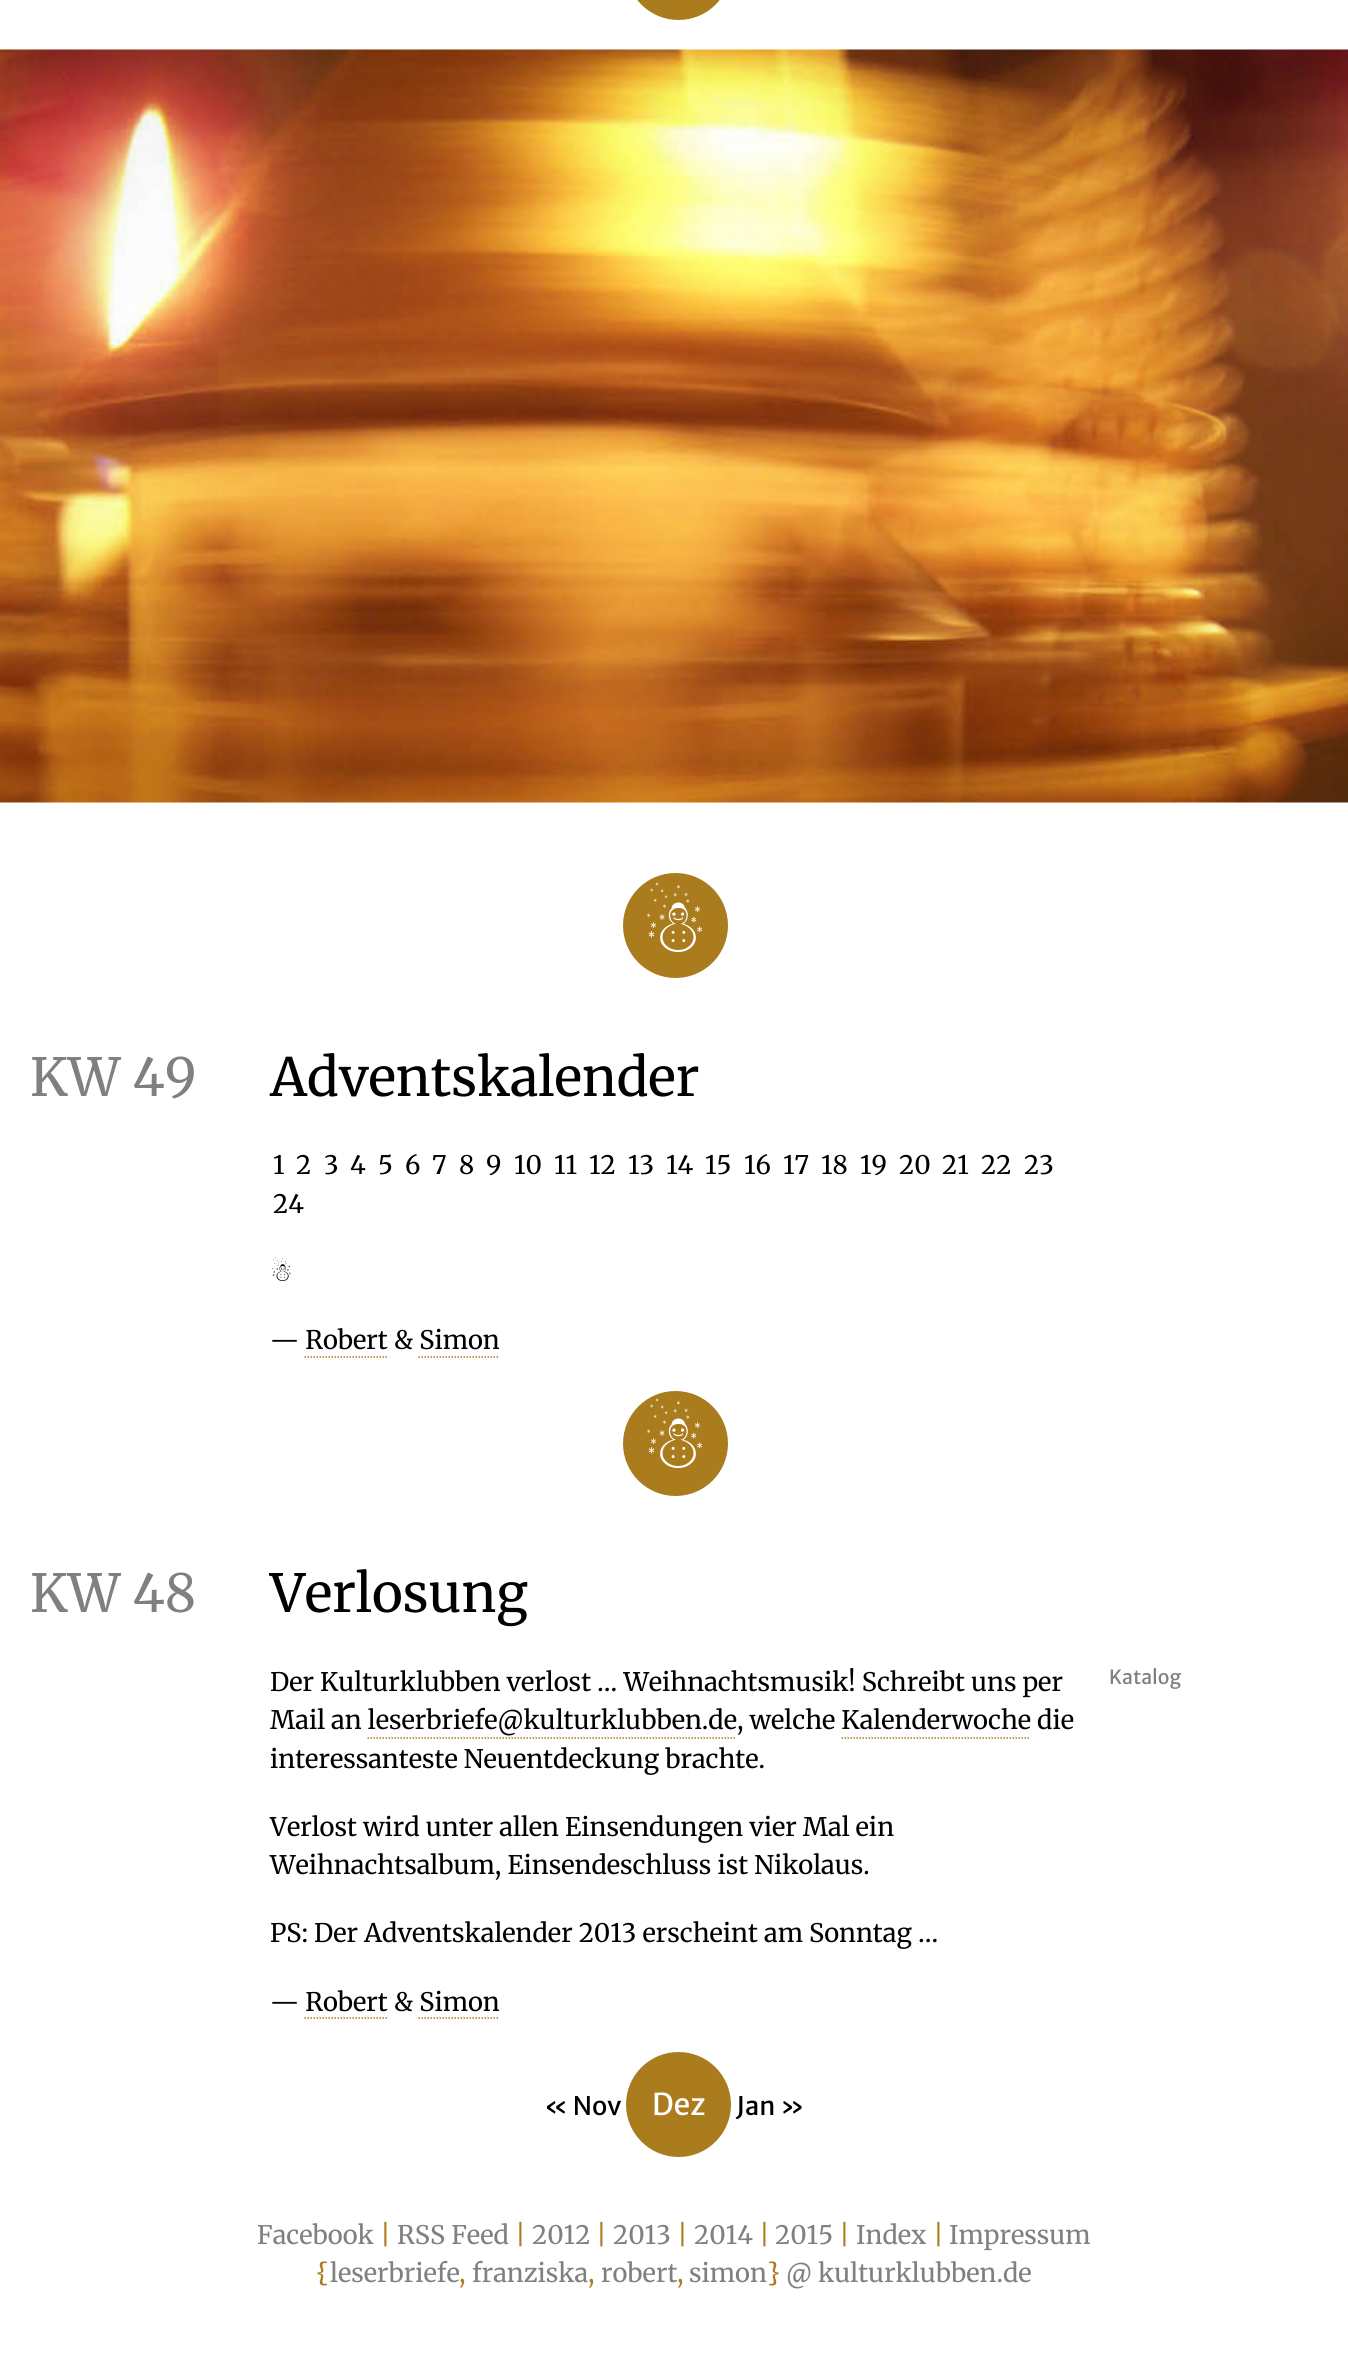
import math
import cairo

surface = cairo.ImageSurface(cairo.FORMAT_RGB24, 1348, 2353)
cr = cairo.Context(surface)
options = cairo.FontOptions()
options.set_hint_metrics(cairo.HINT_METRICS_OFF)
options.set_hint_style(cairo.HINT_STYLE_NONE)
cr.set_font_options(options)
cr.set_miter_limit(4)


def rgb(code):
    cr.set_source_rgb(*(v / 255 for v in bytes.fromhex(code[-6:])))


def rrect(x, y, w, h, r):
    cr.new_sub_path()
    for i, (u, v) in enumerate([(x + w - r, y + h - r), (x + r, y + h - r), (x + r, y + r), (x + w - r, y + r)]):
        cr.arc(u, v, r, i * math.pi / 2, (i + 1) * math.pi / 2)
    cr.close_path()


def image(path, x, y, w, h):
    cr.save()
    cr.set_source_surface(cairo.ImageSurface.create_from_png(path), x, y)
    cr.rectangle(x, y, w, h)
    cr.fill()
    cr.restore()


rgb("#ffffff")
cr.paint()
rgb("#aa7c1e")
rrect(626, -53, 105, 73, 52.5)
cr.fill()
image("img/1.png", 0, 49, 1348, 754)
cr.arc(675.5, 925.5, 52.5, 0, 2 * math.pi)
cr.fill()
cr.new_path()
cr.move_to(304.5, 1357)
cr.line_to(387, 1357)
cr.set_line_width(1.5)
cr.set_dash([1.5, 1.5])
cr.stroke()
cr.new_path()
cr.move_to(418.5, 1357)
cr.line_to(499.5, 1357)
cr.stroke()
cr.arc(675.5, 1443.5, 52.5, 0, 2 * math.pi)
cr.fill()
cr.new_path()
cr.move_to(367.5, 1738)
cr.line_to(736.5, 1738)
cr.stroke()
cr.new_path()
cr.move_to(841.5, 1738)
cr.line_to(1030.5, 1738)
cr.stroke()
cr.new_path()
cr.move_to(304.5, 2018)
cr.line_to(387, 2018)
cr.stroke()
cr.new_path()
cr.move_to(418.5, 2018)
cr.line_to(499.5, 2018)
cr.stroke()
cr.arc(678.5, 2104.5, 52.5, 0, 2 * math.pi)
cr.fill()
cr.select_font_face("DejaVu Sans")
cr.set_font_size(75)
rgb("#ffffff")
cr.move_to(641, 952)
cr.show_text("☃")
cr.select_font_face("Merriweather")
cr.set_font_size(52.5)
rgb("#808080")
cr.move_to(30, 1096)
cr.show_text("KW 49")
rgb("#000000")
cr.move_to(270, 1096)
cr.show_text("Adventskalender")
cr.set_font_size(25.5)
for x, y, s in [
    (273, 1174, "1"),
    (296, 1174, "2"),
    (324, 1174, "3"),
    (350, 1174, "4"),
    (378, 1174, "5"),
    (405, 1174, "6"),
    (432, 1174, "7"),
    (459, 1174, "8"),
    (486, 1174, "9"),
    (514, 1174, "10"),
    (554, 1174, "11"),
    (589, 1174, "12"),
    (628, 1174, "13"),
    (666, 1174, "14"),
    (705, 1174, "15"),
    (744, 1174, "16"),
    (783, 1174, "17"),
    (821, 1174, "18"),
    (860, 1174, "19"),
    (899, 1174, "20"),
    (942, 1174, "21"),
    (981, 1174, "22"),
    (1024, 1174, "23"),
    (273, 1213, "24"),
]:
    cr.move_to(x, y)
    cr.show_text(s)
cr.select_font_face("DejaVu Sans")
cr.move_to(270, 1281)
cr.show_text("☃")
cr.select_font_face("Merriweather")
cr.move_to(270, 1349)
cr.show_text("— Robert & Simon")
cr.select_font_face("DejaVu Sans")
cr.set_font_size(75)
rgb("#ffffff")
cr.move_to(641, 1468)
cr.show_text("☃")
cr.select_font_face("Merriweather")
cr.set_font_size(52.5)
rgb("#808080")
cr.move_to(30, 1612)
cr.show_text("KW 48")
rgb("#000000")
cr.move_to(270, 1612)
cr.show_text("Verlosung")
cr.set_font_size(25.5)
for x, y, s in [
    (270, 1691, "Der Kulturklubben verlost … Weihnachtsmusik! Schreibt uns per"),
    (270, 1729, "Mail an leserbriefe@kulturklubben.de, welche Kalenderwoche die"),
    (270, 1768, "interessanteste Neuentdeckung brachte."),
]:
    cr.move_to(x, y)
    cr.show_text(s)
cr.select_font_face("Merriweather Sans")
cr.set_font_size(19.5)
rgb("#808080")
cr.move_to(1109, 1684)
cr.show_text("Katalog")
cr.select_font_face("Merriweather")
cr.set_font_size(25.5)
rgb("#000000")
for x, y, s in [
    (270, 1836, "Verlost wird unter allen Einsendungen vier Mal ein"),
    (270, 1874, "Weihnachtsalbum, Einsendeschluss ist Nikolaus."),
    (270, 1942, "PS: Der Adventskalender 2013 erscheint am Sonntag …"),
    (270, 2011, "— Robert & Simon"),
]:
    cr.move_to(x, y)
    cr.show_text(s)
cr.select_font_face("Merriweather Sans")
cr.move_to(544, 2115)
cr.show_text("« Nov")
cr.set_font_size(30)
rgb("#ffffff")
cr.move_to(652, 2115)
cr.show_text("Dez")
cr.set_font_size(25.5)
rgb("#000000")
cr.move_to(736, 2115)
cr.show_text("Jan »")
cr.select_font_face("Merriweather")
rgb("#808080")
cr.move_to(257, 2244)
cr.show_text("Facebook")
rgb("#aa7c1e")
cr.move_to(380, 2244)
cr.show_text("|")
rgb("#808080")
cr.move_to(397, 2244)
cr.show_text("RSS Feed")
rgb("#aa7c1e")
cr.move_to(515, 2244)
cr.show_text("|")
rgb("#808080")
cr.move_to(532, 2244)
cr.show_text("2012")
rgb("#aa7c1e")
cr.move_to(596, 2244)
cr.show_text("|")
rgb("#808080")
cr.move_to(613, 2244)
cr.show_text("2013")
rgb("#aa7c1e")
cr.move_to(677, 2244)
cr.show_text("|")
rgb("#808080")
cr.move_to(694, 2244)
cr.show_text("2014")
rgb("#aa7c1e")
cr.move_to(759, 2244)
cr.show_text("|")
rgb("#808080")
cr.move_to(775, 2244)
cr.show_text("2015")
rgb("#aa7c1e")
cr.move_to(839, 2244)
cr.show_text("|")
rgb("#808080")
cr.move_to(856, 2244)
cr.show_text("Index")
rgb("#aa7c1e")
cr.move_to(933, 2244)
cr.show_text("|")
rgb("#808080")
cr.move_to(949, 2244)
cr.show_text("Impressum")
rgb("#aa7c1e")
cr.move_to(316, 2282)
cr.show_text("{")
rgb("#808080")
cr.move_to(330, 2282)
cr.show_text("leserbriefe")
rgb("#aa7c1e")
cr.move_to(459, 2282)
cr.show_text(",")
rgb("#808080")
cr.move_to(472, 2282)
cr.show_text("franziska")
rgb("#aa7c1e")
cr.move_to(588, 2282)
cr.show_text(",")
rgb("#808080")
cr.move_to(601, 2282)
cr.show_text("robert")
rgb("#aa7c1e")
cr.move_to(677, 2282)
cr.show_text(",")
rgb("#808080")
cr.move_to(689, 2282)
cr.show_text("simon")
rgb("#aa7c1e")
cr.move_to(767, 2282)
cr.show_text("}")
rgb("#808080")
cr.move_to(786, 2282)
cr.show_text("@ kulturklubben.de")
surface.write_to_png("page.png")
